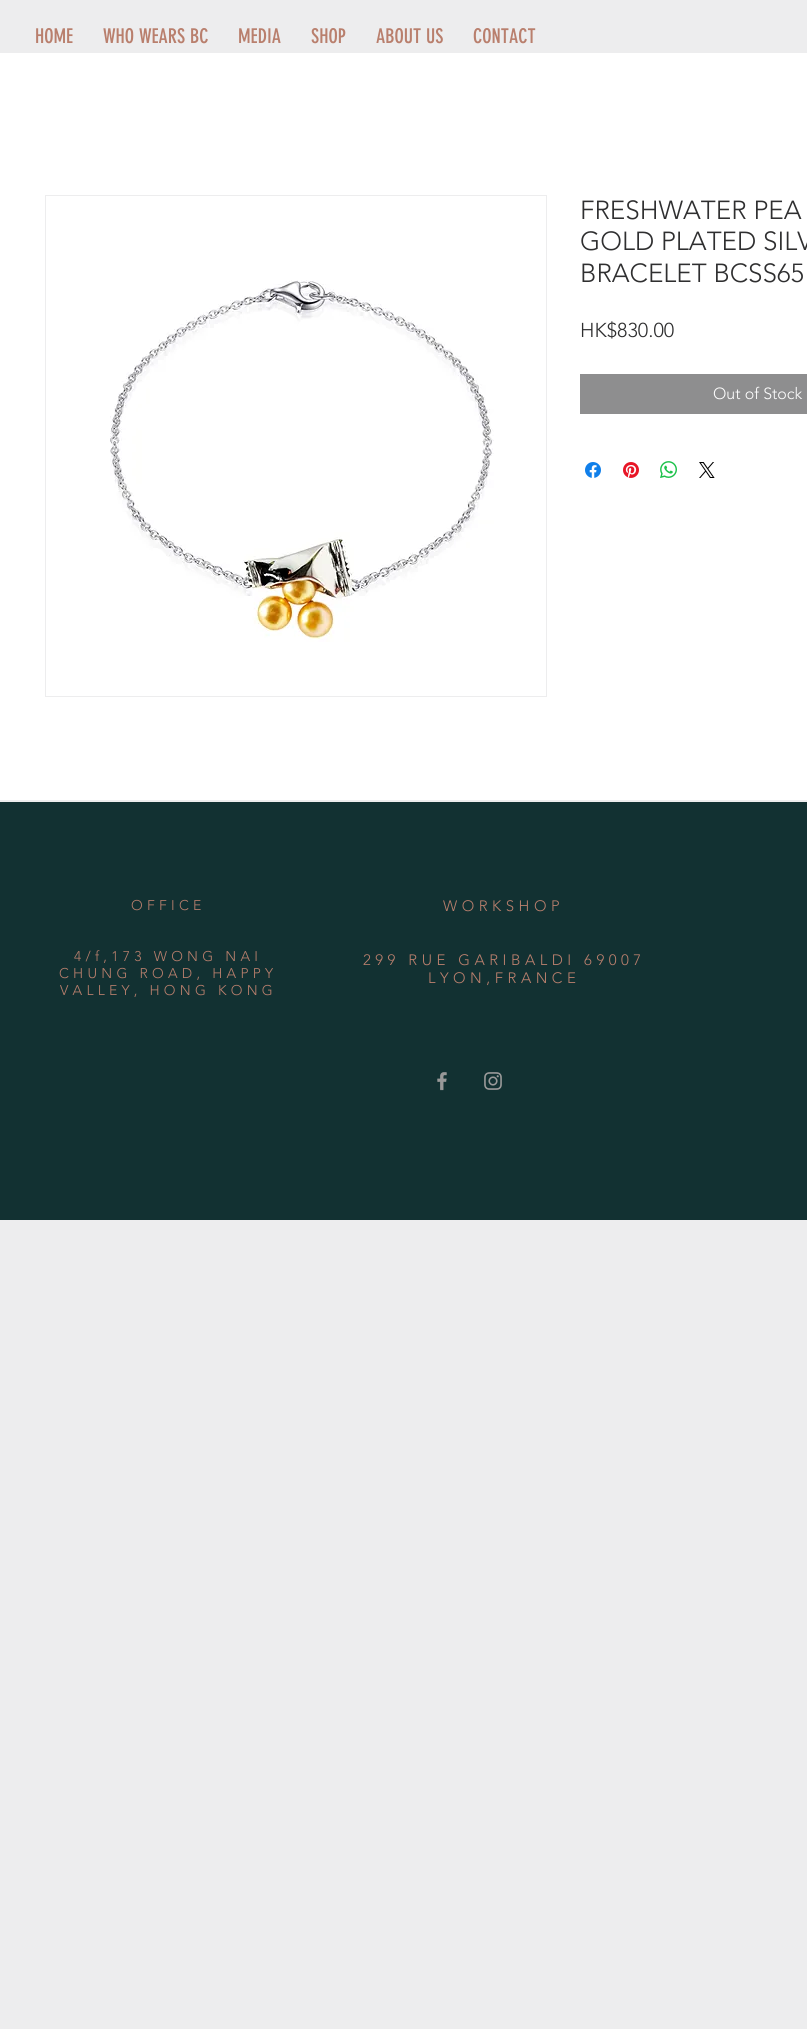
import math
import cairo

surface = cairo.ImageSurface(cairo.FORMAT_RGB24, 807, 2029)
cr = cairo.Context(surface)
options = cairo.FontOptions()
options.set_hint_metrics(cairo.HINT_METRICS_OFF)
options.set_hint_style(cairo.HINT_STYLE_NONE)
cr.set_font_options(options)
cr.set_miter_limit(4)


def rgb(code):
    cr.set_source_rgb(*(v / 255 for v in bytes.fromhex(code[-6:])))


def tracked(x, y, s, letter, word):
    cr.move_to(x, y)
    for ch in s:
        cr.show_text(ch)
        cr.rel_move_to(letter + word * (ch == ' '), 0)


def image(path, x, y, w, h):
    cr.save()
    cr.set_source_surface(cairo.ImageSurface.create_from_png(path), x, y)
    cr.rectangle(x, y, w, h)
    cr.fill()
    cr.restore()


rgb("#ededee")
cr.paint()
rgb("#ffffff")
cr.rectangle(0, 53, 807, 747)
cr.fill()
cr.rectangle(45.5, 195.5, 501, 501)
rgb("#ededee")
cr.set_line_width(1)
cr.stroke()
image("img/1.png", 110, 280, 384, 362)
rgb("#8e8e8f")
cr.rectangle(580, 374, 227, 40)
cr.fill()
image("img/2.png", 585, 462, 16, 16)
image("img/3.png", 623, 462, 16, 16)
image("img/4.png", 660, 461, 17, 17)
image("img/5.png", 699, 462, 16, 16)
rgb("#123132")
cr.rectangle(0, 802, 807, 418)
cr.fill()
image("img/6.png", 437, 1072, 10, 19)
image("img/7.png", 484, 1072, 18, 18)
cr.select_font_face("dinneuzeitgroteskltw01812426")
cr.set_font_size(20)
rgb("#b97f6d")
for x, y, s in [
    (35, 43, "HOME"),
    (103, 43, "WHO WEARS BC"),
    (238, 43, "MEDIA"),
    (311, 43, "SHOP"),
    (376, 43, "ABOUT US"),
    (473, 43, "CONTACT"),
]:
    cr.move_to(x, y)
    cr.show_text(s)
cr.select_font_face("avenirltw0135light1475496 Light")
cr.set_font_size(26)
rgb("#2f2f30")
for x, y, s in [
    (580, 219, "FRESHWATER PEA"),
    (580, 250, "GOLD PLATED SILV"),
    (580, 282, "BRACELET BCSS65"),
]:
    cr.move_to(x, y)
    cr.show_text(s)
cr.set_font_size(20)
cr.move_to(580, 337)
cr.show_text("HK$830.00")
cr.set_font_size(16)
rgb("#ffffff")
cr.move_to(713, 399)
cr.show_text("Out of Stock")
cr.set_font_size(14)
rgb("#b97f6d")
for x, y, s in [
    (131, 910, "OFFICE"),
    (74, 961, "4/f,173 WONG NAI"),
    (59, 978, "CHUNG ROAD, HAPPY"),
    (60, 995, "VALLEY, HONG KONG"),
]:
    tracked(x, y, s, 4.25, 0)
cr.set_font_size(15)
for x, y, s in [
    (443, 911, "WORKSHOP"),
    (363, 965, "299 RUE GARIBALDI 69007"),
    (428, 983, "LYON,FRANCE"),
]:
    tracked(x, y, s, 4.5, 0)
surface.write_to_png("page.png")
